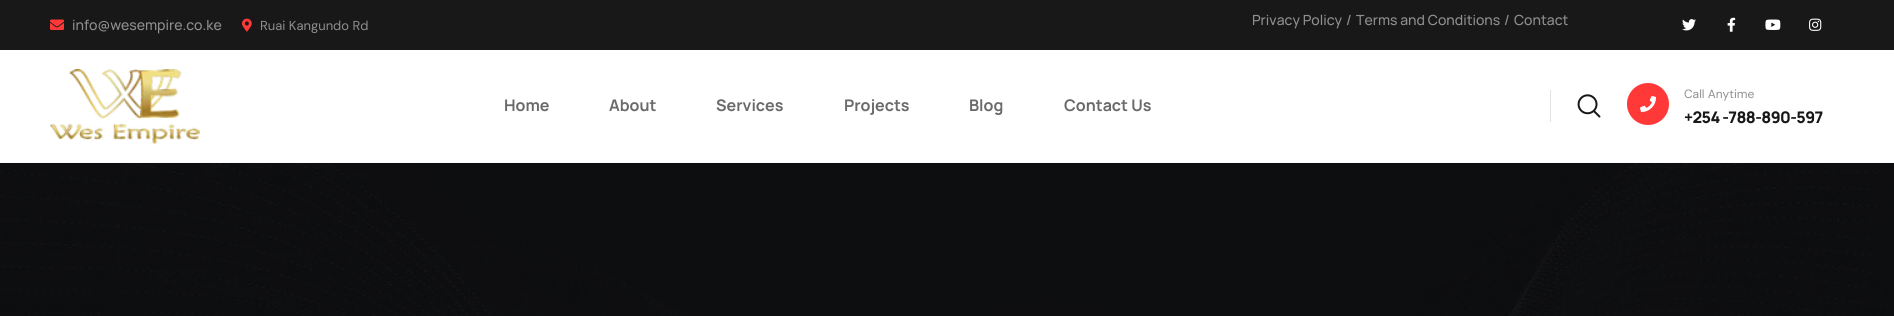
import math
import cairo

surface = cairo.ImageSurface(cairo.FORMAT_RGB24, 1894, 316)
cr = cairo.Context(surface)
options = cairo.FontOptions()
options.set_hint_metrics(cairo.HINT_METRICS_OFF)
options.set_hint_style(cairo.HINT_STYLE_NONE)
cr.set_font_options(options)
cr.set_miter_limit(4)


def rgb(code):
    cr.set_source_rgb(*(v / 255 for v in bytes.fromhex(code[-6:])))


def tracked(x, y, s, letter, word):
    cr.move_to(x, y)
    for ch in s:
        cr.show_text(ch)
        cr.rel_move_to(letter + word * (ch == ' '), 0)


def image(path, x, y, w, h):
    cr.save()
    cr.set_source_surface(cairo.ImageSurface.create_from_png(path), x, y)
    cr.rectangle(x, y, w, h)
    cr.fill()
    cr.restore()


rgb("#ffffff")
cr.paint()
rgb("#181818")
cr.rectangle(0, 0, 1894, 50)
cr.fill()
image("img/1.png", 50, 19, 14, 11)
image("img/2.png", 242, 18, 10, 14)
image("img/3.png", 1682, 19, 14, 12)
image("img/4.png", 1727, 17, 9, 15)
image("img/5.png", 1765, 19, 16, 11)
image("img/6.png", 1809, 18, 13, 13)
rgb("#fafafa")
cr.rectangle(0, 162, 1894, 1)
cr.fill()
image("img/7.png", 50, 69, 150, 75)
rgb("#e3e3e3")
cr.rectangle(1550, 90, 1, 32)
cr.fill()
image("img/8.png", 1577, 94, 24, 24)
rgb("#ff3838")
cr.arc(1648, 104, 21, 0, 2 * math.pi)
cr.fill()
image("img/9.png", 1640, 96, 16, 16)
image("img/10.png", 0, 163, 1894, 153)
cr.select_font_face("Manrope Medium")
cr.set_font_size(14)
rgb("#8f8f8f")
cr.move_to(72, 30)
cr.show_text("info@wesempire.co.ke")
cr.select_font_face("DM Sans")
cr.set_font_size(13)
cr.move_to(260, 30)
cr.show_text("Ruai Kangundo Rd")
cr.select_font_face("Manrope Medium")
cr.set_font_size(14)
for x, y, s in [
    (1252, 25, "Privacy Policy"),
    (1346, 25, "/"),
    (1356, 25, "Terms and Conditions"),
    (1504, 25, "/"),
    (1514, 25, "Contact"),
]:
    cr.move_to(x, y)
    cr.show_text(s)
cr.select_font_face("Manrope", cairo.FONT_SLANT_NORMAL, cairo.FONT_WEIGHT_BOLD)
cr.set_font_size(16)
rgb("#6a6a6a")
for x, y, s in [
    (504, 111, "Home"),
    (609, 111, "About"),
    (716, 111, "Services"),
    (844, 111, "Projects"),
    (969, 111, "Blog"),
    (1064, 111, "Contact Us"),
]:
    cr.move_to(x, y)
    cr.show_text(s)
cr.select_font_face("DM Sans")
cr.set_font_size(12)
rgb("#8f8f8f")
cr.move_to(1684, 98)
cr.show_text("Call Anytime")
cr.select_font_face("Manrope ExtraBold")
cr.set_font_size(16)
rgb("#181818")
tracked(1684, 123, "+254 -788-890-597", -0.6, 0)
surface.write_to_png("page.png")
